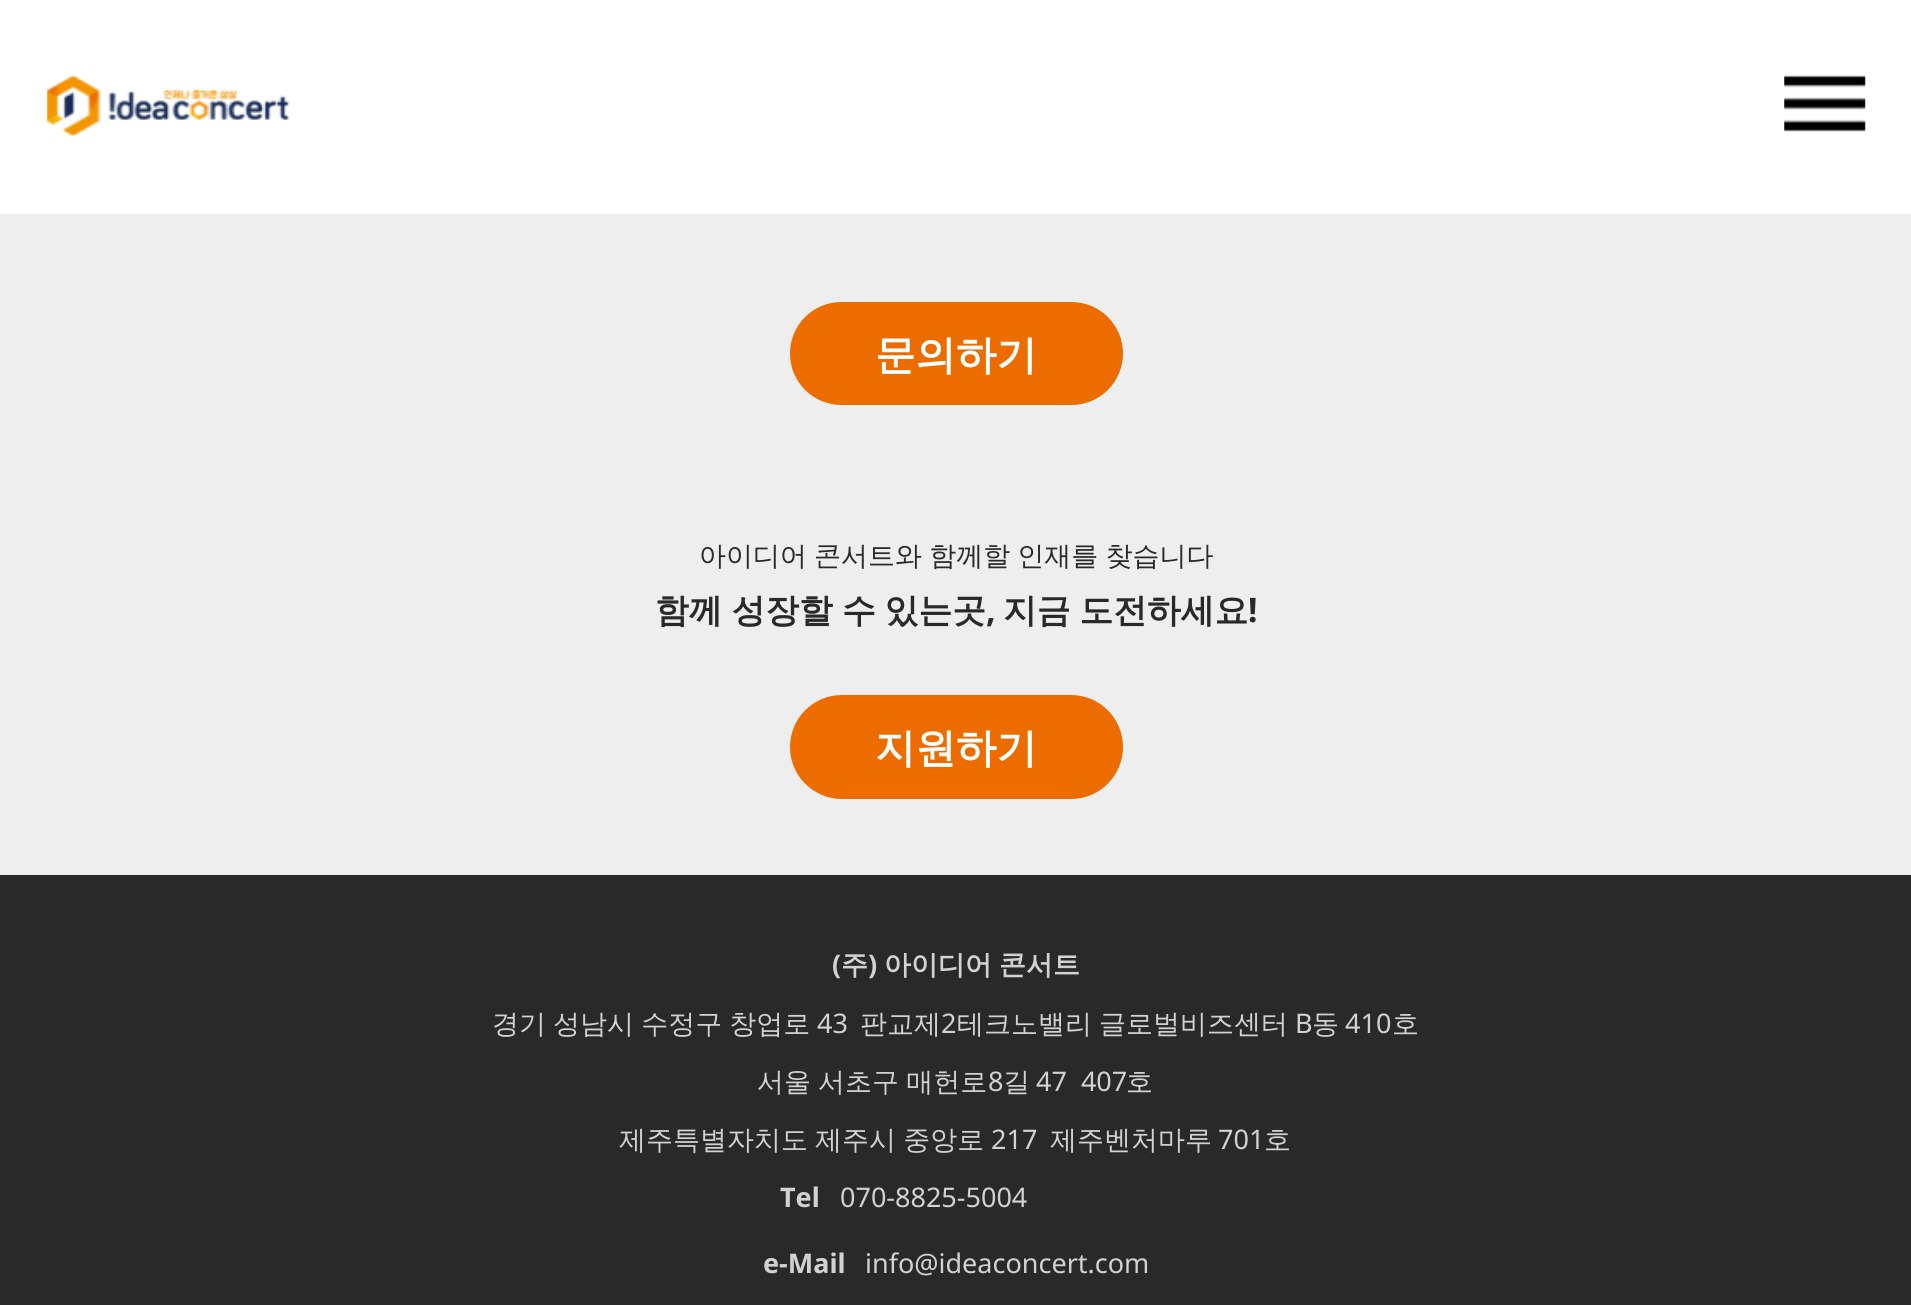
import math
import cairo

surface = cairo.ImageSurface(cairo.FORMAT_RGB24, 1911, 1305)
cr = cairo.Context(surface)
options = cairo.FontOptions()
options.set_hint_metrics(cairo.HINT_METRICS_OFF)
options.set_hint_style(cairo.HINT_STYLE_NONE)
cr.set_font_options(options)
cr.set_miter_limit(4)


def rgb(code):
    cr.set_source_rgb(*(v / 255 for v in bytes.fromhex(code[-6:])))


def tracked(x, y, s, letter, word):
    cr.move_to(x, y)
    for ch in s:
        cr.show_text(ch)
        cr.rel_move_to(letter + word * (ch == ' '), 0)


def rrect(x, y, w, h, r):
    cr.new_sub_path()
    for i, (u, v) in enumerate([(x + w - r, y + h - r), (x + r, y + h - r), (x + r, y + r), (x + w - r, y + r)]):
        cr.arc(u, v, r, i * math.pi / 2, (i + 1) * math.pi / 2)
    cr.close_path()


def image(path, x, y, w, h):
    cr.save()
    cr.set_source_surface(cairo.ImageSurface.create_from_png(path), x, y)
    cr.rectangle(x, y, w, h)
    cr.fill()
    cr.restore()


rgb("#292929")
cr.paint()
rgb("#ffffff")
cr.rectangle(0, 0, 1911, 214)
cr.fill()
image("img/1.png", 47, 74, 243, 62)
image("img/2.png", 1784, 75, 82, 57)
rgb("#eeeeee")
cr.rectangle(0, 214, 1911, 661)
cr.fill()
rgb("#ec6c00")
rrect(790, 302, 333, 103, 51.5)
cr.fill()
rrect(790, 695, 333, 104, 52)
cr.fill()
cr.select_font_face("WenQuanYi Zen Hei", cairo.FONT_SLANT_NORMAL, cairo.FONT_WEIGHT_BOLD)
cr.set_font_size(40.5)
rgb("#ffffff")
cr.move_to(875, 369)
cr.show_text("문의하기")
cr.select_font_face("WenQuanYi Zen Hei Medium")
cr.set_font_size(27)
rgb("#292929")
tracked(699, 565, "아이디어 콘서트와 함께할 인재를 찾습니다", 0, -1)
cr.select_font_face("WenQuanYi Zen Hei", cairo.FONT_SLANT_NORMAL, cairo.FONT_WEIGHT_BOLD)
cr.set_font_size(33.75)
tracked(655, 622, "함께 성장할 수 있는곳", 0, -1)
cr.select_font_face("Noto Sans", cairo.FONT_SLANT_NORMAL, cairo.FONT_WEIGHT_BOLD)
cr.move_to(986, 622)
cr.show_text(",")
cr.select_font_face("WenQuanYi Zen Hei", cairo.FONT_SLANT_NORMAL, cairo.FONT_WEIGHT_BOLD)
tracked(1003, 622, "지금 도전하세요", 0, -1)
cr.select_font_face("Noto Sans", cairo.FONT_SLANT_NORMAL, cairo.FONT_WEIGHT_BOLD)
cr.move_to(1248, 622)
cr.show_text("!")
cr.select_font_face("WenQuanYi Zen Hei", cairo.FONT_SLANT_NORMAL, cairo.FONT_WEIGHT_BOLD)
cr.set_font_size(40.5)
rgb("#ffffff")
cr.move_to(875, 762)
cr.show_text("지원하기")
cr.select_font_face("Noto Sans", cairo.FONT_SLANT_NORMAL, cairo.FONT_WEIGHT_BOLD)
cr.set_font_size(27)
rgb("#d2d2d2")
cr.move_to(832, 974)
cr.show_text("(")
cr.select_font_face("WenQuanYi Zen Hei", cairo.FONT_SLANT_NORMAL, cairo.FONT_WEIGHT_BOLD)
cr.move_to(841, 974)
cr.show_text("주")
cr.select_font_face("Noto Sans", cairo.FONT_SLANT_NORMAL, cairo.FONT_WEIGHT_BOLD)
cr.move_to(868, 974)
cr.show_text(")")
cr.select_font_face("WenQuanYi Zen Hei", cairo.FONT_SLANT_NORMAL, cairo.FONT_WEIGHT_BOLD)
tracked(884, 974, "아이디어 콘서트", 0, -1)
cr.select_font_face("WenQuanYi Zen Hei Medium")
tracked(492, 1033, "경기 성남시 수정구 창업로", 0, -1)
cr.select_font_face("Noto Sans")
cr.move_to(817, 1033)
cr.show_text("43")
cr.select_font_face("WenQuanYi Zen Hei Medium")
cr.move_to(860, 1033)
cr.show_text("판교제")
cr.select_font_face("Noto Sans")
cr.move_to(941, 1033)
cr.show_text("2")
cr.select_font_face("WenQuanYi Zen Hei Medium")
tracked(957, 1033, "테크노밸리 글로벌비즈센터", 0, -1)
cr.select_font_face("Noto Sans")
cr.move_to(1295, 1033)
cr.show_text("B")
cr.select_font_face("WenQuanYi Zen Hei Medium")
cr.move_to(1312, 1033)
cr.show_text("동")
cr.select_font_face("Noto Sans")
cr.move_to(1345, 1033)
cr.show_text("410")
cr.select_font_face("WenQuanYi Zen Hei Medium")
cr.move_to(1392, 1033)
cr.show_text("호")
tracked(757, 1091, "서울 서초구 매헌로", 0, -1)
cr.select_font_face("Noto Sans")
cr.move_to(988, 1091)
cr.show_text("8")
cr.select_font_face("WenQuanYi Zen Hei Medium")
cr.move_to(1003, 1091)
cr.show_text("길")
cr.select_font_face("Noto Sans")
cr.move_to(1036, 1091)
cr.show_text("47  407")
cr.select_font_face("WenQuanYi Zen Hei Medium")
cr.move_to(1126, 1091)
cr.show_text("호")
tracked(619, 1149, "제주특별자치도 제주시 중앙로", 0, -1)
cr.select_font_face("Noto Sans")
cr.move_to(991, 1149)
cr.show_text("217")
cr.select_font_face("WenQuanYi Zen Hei Medium")
cr.move_to(1050, 1149)
cr.show_text("제주벤처마루")
cr.select_font_face("Noto Sans")
cr.move_to(1218, 1149)
cr.show_text("701")
cr.select_font_face("WenQuanYi Zen Hei Medium")
cr.move_to(1264, 1149)
cr.show_text("호")
cr.select_font_face("Noto Sans", cairo.FONT_SLANT_NORMAL, cairo.FONT_WEIGHT_BOLD)
cr.move_to(780, 1207)
cr.show_text("Tel")
cr.select_font_face("Noto Sans")
cr.move_to(840, 1207)
cr.show_text("070-8825-5004")
cr.select_font_face("Noto Sans", cairo.FONT_SLANT_NORMAL, cairo.FONT_WEIGHT_BOLD)
cr.move_to(763, 1273)
cr.show_text("e-Mail")
cr.select_font_face("Noto Sans")
cr.move_to(865, 1273)
cr.show_text("info@ideaconcert.com")
surface.write_to_png("page.png")
